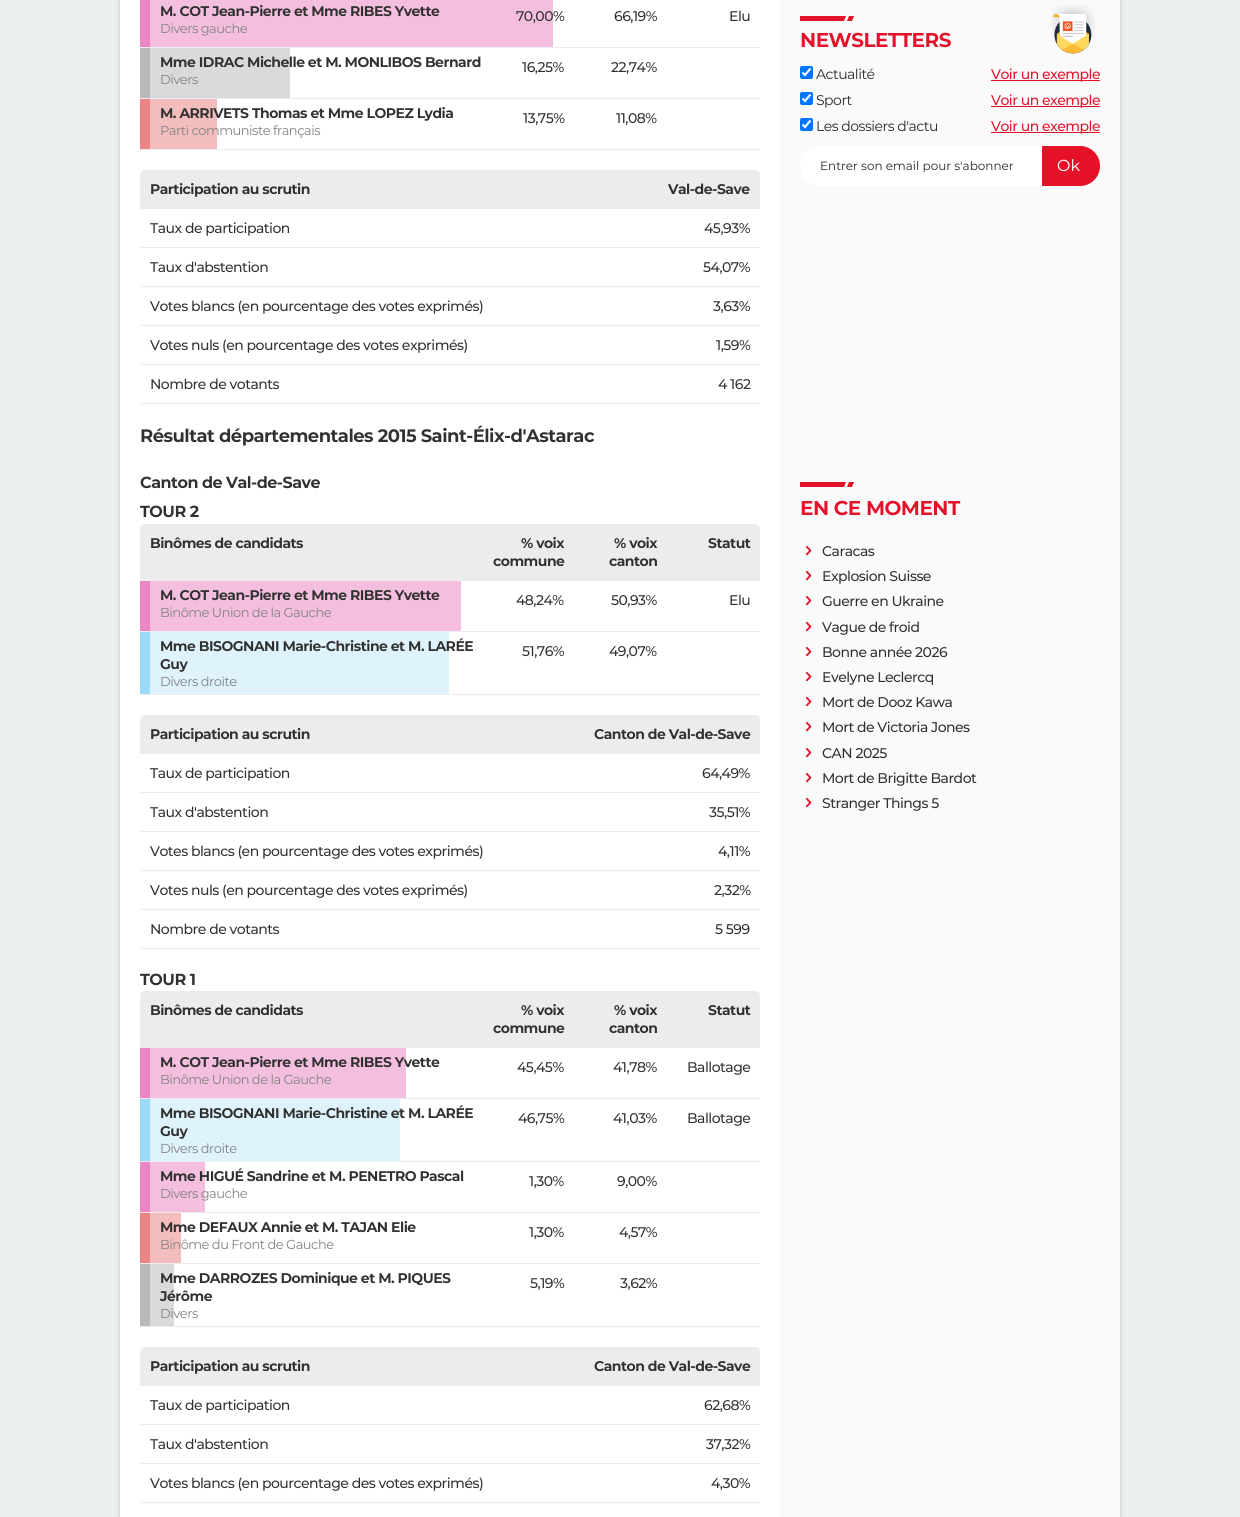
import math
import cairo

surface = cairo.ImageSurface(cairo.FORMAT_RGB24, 1240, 1517)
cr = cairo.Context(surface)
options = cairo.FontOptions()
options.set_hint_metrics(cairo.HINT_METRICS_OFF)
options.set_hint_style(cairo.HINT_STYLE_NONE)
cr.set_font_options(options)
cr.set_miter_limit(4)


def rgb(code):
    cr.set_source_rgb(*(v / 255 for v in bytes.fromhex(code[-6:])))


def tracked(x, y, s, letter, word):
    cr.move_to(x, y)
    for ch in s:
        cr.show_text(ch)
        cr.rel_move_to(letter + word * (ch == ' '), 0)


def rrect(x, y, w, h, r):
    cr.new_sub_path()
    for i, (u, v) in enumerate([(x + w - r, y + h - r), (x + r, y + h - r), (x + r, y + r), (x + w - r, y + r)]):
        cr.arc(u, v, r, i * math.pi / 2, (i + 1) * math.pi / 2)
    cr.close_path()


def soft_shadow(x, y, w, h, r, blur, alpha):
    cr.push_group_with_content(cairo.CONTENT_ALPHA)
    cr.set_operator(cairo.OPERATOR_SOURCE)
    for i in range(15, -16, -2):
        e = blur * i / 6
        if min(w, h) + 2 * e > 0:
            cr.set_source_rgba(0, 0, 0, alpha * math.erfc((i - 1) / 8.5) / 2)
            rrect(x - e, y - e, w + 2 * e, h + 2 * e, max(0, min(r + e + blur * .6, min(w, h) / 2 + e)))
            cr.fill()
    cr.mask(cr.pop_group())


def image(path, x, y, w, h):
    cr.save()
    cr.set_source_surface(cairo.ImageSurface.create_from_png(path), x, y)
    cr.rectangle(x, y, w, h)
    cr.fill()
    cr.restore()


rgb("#edf0f0")
cr.paint()
rgb("#000000")
soft_shadow(120, -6, 1000, 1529, 0, 2, 0.2)
for x, y, w, h, color in [
    (780, 0, 340, 1517, "#fafafa"),
    (120, 0, 660, 1517, "#ffffff"),
    (140, 47, 620, 1, "#ececec"),
    (150, 0, 403, 47, "#f4bede"),
    (140, 0, 10, 47, "#eb86c2"),
    (140, 98, 620, 1, "#ececec"),
    (150, 48, 140, 50, "#dadada"),
    (140, 48, 10, 50, "#b9b9b9"),
    (140, 149, 620, 1, "#ececec"),
    (150, 99, 67, 50, "#f4bdbd"),
    (140, 99, 10, 50, "#eb8585"),
    (140, 208, 620, 1, "#ececec"),
]:
    rgb(color)
    cr.rectangle(x, y, w, h)
    cr.fill()
cr.new_path()
cr.move_to(145, 170)
cr.line_to(574, 170)
cr.line_to(574, 208)
cr.line_to(140, 208)
cr.line_to(140, 175)
cr.curve_to(140, 172, 142, 170, 145, 170)
cr.close_path()
cr.fill()
cr.new_path()
cr.move_to(574, 170)
cr.line_to(755, 170)
cr.curve_to(758, 170, 760, 172, 760, 175)
cr.line_to(760, 208)
cr.line_to(574, 208)
cr.close_path()
cr.fill()
for x, y, w, h, color in [
    (140, 247, 620, 1, "#ececec"),
    (140, 286, 620, 1, "#ececec"),
    (140, 325, 620, 1, "#ececec"),
    (140, 364, 620, 1, "#ececec"),
    (140, 403, 620, 1, "#ececec"),
    (140, 580, 620, 1, "#ececec"),
]:
    rgb(color)
    cr.rectangle(x, y, w, h)
    cr.fill()
cr.new_path()
cr.move_to(145, 524)
cr.line_to(450, 524)
cr.line_to(450, 580)
cr.line_to(140, 580)
cr.line_to(140, 529)
cr.curve_to(140, 526, 142, 524, 145, 524)
cr.close_path()
cr.fill()
cr.rectangle(450, 524, 217, 56)
cr.fill()
cr.new_path()
cr.move_to(667, 524)
cr.line_to(755, 524)
cr.curve_to(758, 524, 760, 526, 760, 529)
cr.line_to(760, 580)
cr.line_to(667, 580)
cr.close_path()
cr.fill()
for x, y, w, h, color in [
    (140, 631, 620, 1, "#ececec"),
    (150, 581, 311, 50, "#f4bede"),
    (140, 581, 10, 50, "#eb86c2"),
    (140, 694, 620, 1, "#ececec"),
    (150, 632, 299, 62, "#dff3fd"),
    (140, 632, 10, 62, "#9cdaf9"),
    (140, 753, 620, 1, "#ececec"),
]:
    rgb(color)
    cr.rectangle(x, y, w, h)
    cr.fill()
cr.new_path()
cr.move_to(145, 715)
cr.line_to(574, 715)
cr.line_to(574, 753)
cr.line_to(140, 753)
cr.line_to(140, 720)
cr.curve_to(140, 717, 142, 715, 145, 715)
cr.close_path()
cr.fill()
cr.new_path()
cr.move_to(574, 715)
cr.line_to(755, 715)
cr.curve_to(758, 715, 760, 717, 760, 720)
cr.line_to(760, 753)
cr.line_to(574, 753)
cr.close_path()
cr.fill()
for x, y, w, h, color in [
    (140, 792, 620, 1, "#ececec"),
    (140, 831, 620, 1, "#ececec"),
    (140, 870, 620, 1, "#ececec"),
    (140, 909, 620, 1, "#ececec"),
    (140, 948, 620, 1, "#ececec"),
    (140, 1047, 620, 1, "#ececec"),
]:
    rgb(color)
    cr.rectangle(x, y, w, h)
    cr.fill()
cr.new_path()
cr.move_to(145, 991)
cr.line_to(450, 991)
cr.line_to(450, 1047)
cr.line_to(140, 1047)
cr.line_to(140, 996)
cr.curve_to(140, 993, 142, 991, 145, 991)
cr.close_path()
cr.fill()
cr.rectangle(450, 991, 217, 56)
cr.fill()
cr.new_path()
cr.move_to(667, 991)
cr.line_to(755, 991)
cr.curve_to(758, 991, 760, 993, 760, 996)
cr.line_to(760, 1047)
cr.line_to(667, 1047)
cr.close_path()
cr.fill()
for x, y, w, h, color in [
    (140, 1098, 620, 1, "#ececec"),
    (150, 1048, 256, 50, "#f4bede"),
    (140, 1048, 10, 50, "#eb86c2"),
    (140, 1161, 620, 1, "#ececec"),
    (150, 1099, 250, 62, "#dff3fd"),
    (140, 1099, 10, 62, "#9cdaf9"),
    (140, 1212, 620, 1, "#ececec"),
    (150, 1162, 55, 50, "#f4bede"),
    (140, 1162, 10, 50, "#eb86c2"),
    (140, 1263, 620, 1, "#ececec"),
    (150, 1213, 31, 50, "#f4bdbd"),
    (140, 1213, 10, 50, "#eb8585"),
    (140, 1326, 620, 1, "#ececec"),
    (150, 1264, 24, 62, "#dadada"),
    (140, 1264, 10, 62, "#b9b9b9"),
    (140, 1385, 620, 1, "#ececec"),
]:
    rgb(color)
    cr.rectangle(x, y, w, h)
    cr.fill()
cr.new_path()
cr.move_to(145, 1347)
cr.line_to(574, 1347)
cr.line_to(574, 1385)
cr.line_to(140, 1385)
cr.line_to(140, 1352)
cr.curve_to(140, 1349, 142, 1347, 145, 1347)
cr.close_path()
cr.fill()
cr.new_path()
cr.move_to(574, 1347)
cr.line_to(755, 1347)
cr.curve_to(758, 1347, 760, 1349, 760, 1352)
cr.line_to(760, 1385)
cr.line_to(574, 1385)
cr.close_path()
cr.fill()
for x, y, w, h, color in [
    (140, 1424, 620, 1, "#ececec"),
    (140, 1463, 620, 1, "#ececec"),
    (140, 1502, 620, 1, "#ececec"),
    (800, 16, 50, 5, "#e41129"),
]:
    rgb(color)
    cr.rectangle(x, y, w, h)
    cr.fill()
rgb("#ffffff")
cr.new_path()
cr.move_to(846, 16)
cr.line_to(854, 16)
cr.line_to(852, 21)
cr.line_to(844, 21)
cr.close_path()
cr.fill()
rgb("#e41129")
cr.new_path()
cr.move_to(849, 16)
cr.line_to(854, 16)
cr.line_to(852, 21)
cr.line_to(847, 21)
cr.close_path()
cr.fill()
image("img/1.png", 1051, 5, 44, 49)
rgb("#0075ff")
rrect(800, 66, 13, 13, 2)
cr.fill()
cr.new_path()
cr.move_to(802.5, 72.5)
cr.line_to(805, 75)
cr.line_to(810.5, 68.5)
rgb("#ffffff")
cr.set_line_width(2.1)
cr.stroke()
rgb("#e41129")
cr.rectangle(991, 80, 109, 1)
cr.fill()
rgb("#0075ff")
rrect(800, 92, 13, 13, 2)
cr.fill()
cr.new_path()
cr.move_to(802.5, 98.5)
cr.line_to(805, 101)
cr.line_to(810.5, 94.5)
rgb("#ffffff")
cr.stroke()
rgb("#e41129")
cr.rectangle(991, 106, 109, 1)
cr.fill()
rgb("#0075ff")
rrect(800, 118, 13, 13, 2)
cr.fill()
cr.new_path()
cr.move_to(802.5, 124.5)
cr.line_to(805, 127)
cr.line_to(810.5, 120.5)
rgb("#ffffff")
cr.stroke()
rgb("#e41129")
cr.rectangle(991, 132, 109, 1)
cr.fill()
rgb("#ffffff")
rrect(800, 146, 300, 40, 20)
cr.fill()
rgb("#e41129")
cr.new_path()
cr.move_to(1043, 147)
cr.line_to(1080, 147)
cr.curve_to(1090.5, 147, 1099, 155.5, 1099, 166)
cr.curve_to(1099, 176.5, 1090.5, 185, 1080, 185)
cr.line_to(1043, 185)
cr.close_path()
cr.fill_preserve()
cr.set_line_width(2)
cr.stroke()
cr.rectangle(800, 482, 50, 5)
cr.fill()
rgb("#ffffff")
cr.new_path()
cr.move_to(846, 482)
cr.line_to(854, 482)
cr.line_to(852, 487)
cr.line_to(844, 487)
cr.close_path()
cr.fill()
rgb("#e41129")
cr.new_path()
cr.move_to(849, 482)
cr.line_to(854, 482)
cr.line_to(852, 487)
cr.line_to(847, 487)
cr.close_path()
cr.fill()
cr.select_font_face("Montserrat", cairo.FONT_SLANT_NORMAL, cairo.FONT_WEIGHT_BOLD)
cr.set_font_size(14)
rgb("#303030")
tracked(160, 16, "M. COT Jean-Pierre et Mme RIBES Yvette", -0.5, 0)
cr.select_font_face("Montserrat")
cr.set_font_size(13)
rgb("#858585")
tracked(160, 33, "Divers gauche", -0.5, 0)
cr.select_font_face("Montserrat Medium")
cr.set_font_size(14)
rgb("#303030")
for x, y, s in [
    (516, 21, "70,00%"),
    (614, 21, "66,19%"),
    (729, 21, "Elu"),
]:
    tracked(x, y, s, -0.5, 0)
cr.select_font_face("Montserrat", cairo.FONT_SLANT_NORMAL, cairo.FONT_WEIGHT_BOLD)
tracked(160, 67, "Mme IDRAC Michelle et M. MONLIBOS Bernard", -0.5, 0)
cr.select_font_face("Montserrat")
cr.set_font_size(13)
rgb("#858585")
tracked(160, 84, "Divers", -0.5, 0)
cr.select_font_face("Montserrat Medium")
cr.set_font_size(14)
rgb("#303030")
tracked(522, 72, "16,25%", -0.5, 0)
tracked(611, 72, "22,74%", -0.5, 0)
cr.select_font_face("Montserrat", cairo.FONT_SLANT_NORMAL, cairo.FONT_WEIGHT_BOLD)
tracked(160, 118, "M. ARRIVETS Thomas et Mme LOPEZ Lydia", -0.5, 0)
cr.select_font_face("Montserrat")
cr.set_font_size(13)
rgb("#858585")
tracked(160, 135, "Parti communiste français", -0.5, 0)
cr.select_font_face("Montserrat Medium")
cr.set_font_size(14)
rgb("#303030")
tracked(523, 123, "13,75%", -0.5, 0)
tracked(616, 123, "11,08%", -0.5, 0)
cr.select_font_face("Montserrat", cairo.FONT_SLANT_NORMAL, cairo.FONT_WEIGHT_BOLD)
tracked(150, 194, "Participation au scrutin", -0.5, 0)
tracked(668, 194, "Val-de-Save", -0.5, 0)
cr.select_font_face("Montserrat Medium")
for x, y, s in [
    (150, 233, "Taux de participation"),
    (704, 233, "45,93%"),
    (150, 272, "Taux d'abstention"),
    (703, 272, "54,07%"),
    (150, 311, "Votes blancs (en pourcentage des votes exprimés)"),
    (713, 311, "3,63%"),
    (150, 350, "Votes nuls (en pourcentage des votes exprimés)"),
    (716, 350, "1,59%"),
    (150, 389, "Nombre de votants"),
    (718, 389, "4 162"),
]:
    tracked(x, y, s, -0.5, 0)
cr.select_font_face("Montserrat", cairo.FONT_SLANT_NORMAL, cairo.FONT_WEIGHT_BOLD)
cr.set_font_size(18)
tracked(140, 442, "Résultat départementales 2015 Saint-Élix-d'Astarac", -0.5, 0)
cr.set_font_size(16)
tracked(140, 488, "Canton de Val-de-Save", -0.5, 0)
tracked(140, 517, "TOUR 2", -0.5, 0)
cr.set_font_size(14)
for x, y, s in [
    (150, 548, "Binômes de candidats"),
    (521, 548, "% voix"),
    (493, 566, "commune"),
    (614, 548, "% voix"),
    (609, 566, "canton"),
    (708, 548, "Statut"),
    (160, 600, "M. COT Jean-Pierre et Mme RIBES Yvette"),
]:
    tracked(x, y, s, -0.5, 0)
cr.select_font_face("Montserrat")
cr.set_font_size(13)
rgb("#858585")
tracked(160, 617, "Binôme Union de la Gauche", -0.5, 0)
cr.select_font_face("Montserrat Medium")
cr.set_font_size(14)
rgb("#303030")
for x, y, s in [
    (516, 605, "48,24%"),
    (611, 605, "50,93%"),
    (729, 605, "Elu"),
]:
    tracked(x, y, s, -0.5, 0)
cr.select_font_face("Montserrat", cairo.FONT_SLANT_NORMAL, cairo.FONT_WEIGHT_BOLD)
tracked(160, 651, "Mme BISOGNANI Marie-Christine et M. LARÉE", -0.5, 0)
tracked(160, 669, "Guy", -0.5, 0)
cr.select_font_face("Montserrat")
cr.set_font_size(13)
rgb("#858585")
tracked(160, 686, "Divers droite", -0.5, 0)
cr.select_font_face("Montserrat Medium")
cr.set_font_size(14)
rgb("#303030")
tracked(522, 656, "51,76%", -0.5, 0)
tracked(609, 656, "49,07%", -0.5, 0)
cr.select_font_face("Montserrat", cairo.FONT_SLANT_NORMAL, cairo.FONT_WEIGHT_BOLD)
tracked(150, 739, "Participation au scrutin", -0.5, 0)
tracked(594, 739, "Canton de Val-de-Save", -0.5, 0)
cr.select_font_face("Montserrat Medium")
for x, y, s in [
    (150, 778, "Taux de participation"),
    (702, 778, "64,49%"),
    (150, 817, "Taux d'abstention"),
    (709, 817, "35,51%"),
    (150, 856, "Votes blancs (en pourcentage des votes exprimés)"),
    (718, 856, "4,11%"),
    (150, 895, "Votes nuls (en pourcentage des votes exprimés)"),
    (714, 895, "2,32%"),
    (150, 934, "Nombre de votants"),
    (715, 934, "5 599"),
]:
    tracked(x, y, s, -0.5, 0)
cr.select_font_face("Montserrat", cairo.FONT_SLANT_NORMAL, cairo.FONT_WEIGHT_BOLD)
cr.set_font_size(16)
tracked(140, 985, "TOUR 1", -0.5, 0)
cr.set_font_size(14)
for x, y, s in [
    (150, 1015, "Binômes de candidats"),
    (521, 1015, "% voix"),
    (493, 1033, "commune"),
    (614, 1015, "% voix"),
    (609, 1033, "canton"),
    (708, 1015, "Statut"),
    (160, 1067, "M. COT Jean-Pierre et Mme RIBES Yvette"),
]:
    tracked(x, y, s, -0.5, 0)
cr.select_font_face("Montserrat")
cr.set_font_size(13)
rgb("#858585")
tracked(160, 1084, "Binôme Union de la Gauche", -0.5, 0)
cr.select_font_face("Montserrat Medium")
cr.set_font_size(14)
rgb("#303030")
for x, y, s in [
    (517, 1072, "45,45%"),
    (613, 1072, "41,78%"),
    (687, 1072, "Ballotage"),
]:
    tracked(x, y, s, -0.5, 0)
cr.select_font_face("Montserrat", cairo.FONT_SLANT_NORMAL, cairo.FONT_WEIGHT_BOLD)
tracked(160, 1118, "Mme BISOGNANI Marie-Christine et M. LARÉE", -0.5, 0)
tracked(160, 1136, "Guy", -0.5, 0)
cr.select_font_face("Montserrat")
cr.set_font_size(13)
rgb("#858585")
tracked(160, 1153, "Divers droite", -0.5, 0)
cr.select_font_face("Montserrat Medium")
cr.set_font_size(14)
rgb("#303030")
for x, y, s in [
    (518, 1123, "46,75%"),
    (613, 1123, "41,03%"),
    (687, 1123, "Ballotage"),
]:
    tracked(x, y, s, -0.5, 0)
cr.select_font_face("Montserrat", cairo.FONT_SLANT_NORMAL, cairo.FONT_WEIGHT_BOLD)
tracked(160, 1181, "Mme HIGUÉ Sandrine et M. PENETRO Pascal", -0.5, 0)
cr.select_font_face("Montserrat")
cr.set_font_size(13)
rgb("#858585")
tracked(160, 1198, "Divers gauche", -0.5, 0)
cr.select_font_face("Montserrat Medium")
cr.set_font_size(14)
rgb("#303030")
tracked(529, 1186, "1,30%", -0.5, 0)
tracked(617, 1186, "9,00%", -0.5, 0)
cr.select_font_face("Montserrat", cairo.FONT_SLANT_NORMAL, cairo.FONT_WEIGHT_BOLD)
tracked(160, 1232, "Mme DEFAUX Annie et M. TAJAN Elie", -0.5, 0)
cr.select_font_face("Montserrat")
cr.set_font_size(13)
rgb("#858585")
tracked(160, 1249, "Binôme du Front de Gauche", -0.5, 0)
cr.select_font_face("Montserrat Medium")
cr.set_font_size(14)
rgb("#303030")
tracked(529, 1237, "1,30%", -0.5, 0)
tracked(619, 1237, "4,57%", -0.5, 0)
cr.select_font_face("Montserrat", cairo.FONT_SLANT_NORMAL, cairo.FONT_WEIGHT_BOLD)
tracked(160, 1283, "Mme DARROZES Dominique et M. PIQUES", -0.5, 0)
tracked(160, 1301, "Jérôme", -0.5, 0)
cr.select_font_face("Montserrat")
cr.set_font_size(13)
rgb("#858585")
tracked(160, 1318, "Divers", -0.5, 0)
cr.select_font_face("Montserrat Medium")
cr.set_font_size(14)
rgb("#303030")
tracked(530, 1288, "5,19%", -0.5, 0)
tracked(620, 1288, "3,62%", -0.5, 0)
cr.select_font_face("Montserrat", cairo.FONT_SLANT_NORMAL, cairo.FONT_WEIGHT_BOLD)
tracked(150, 1371, "Participation au scrutin", -0.5, 0)
tracked(594, 1371, "Canton de Val-de-Save", -0.5, 0)
cr.select_font_face("Montserrat Medium")
for x, y, s in [
    (150, 1410, "Taux de participation"),
    (704, 1410, "62,68%"),
    (150, 1449, "Taux d'abstention"),
    (706, 1449, "37,32%"),
    (150, 1488, "Votes blancs (en pourcentage des votes exprimés)"),
    (711, 1488, "4,30%"),
]:
    tracked(x, y, s, -0.5, 0)
cr.select_font_face("Montserrat", cairo.FONT_SLANT_NORMAL, cairo.FONT_WEIGHT_BOLD)
cr.set_font_size(20)
rgb("#e41129")
tracked(800, 47, "NEWSLETTERS", -0.5, 0)
cr.select_font_face("Montserrat")
cr.set_font_size(14)
rgb("#303030")
tracked(816, 79, "Actualité", -0.5, 0)
cr.select_font_face("Montserrat Medium")
rgb("#e41129")
tracked(991, 79, "Voir un exemple", -0.5, 0)
cr.select_font_face("Montserrat")
rgb("#303030")
tracked(816, 105, "Sport", -0.5, 0)
cr.select_font_face("Montserrat Medium")
rgb("#e41129")
tracked(991, 105, "Voir un exemple", -0.5, 0)
cr.select_font_face("Montserrat")
rgb("#303030")
tracked(816, 131, "Les dossiers d'actu", -0.5, 0)
cr.select_font_face("Montserrat Medium")
rgb("#e41129")
tracked(991, 131, "Voir un exemple", -0.5, 0)
cr.select_font_face("Montserrat")
cr.set_font_size(12)
rgb("#303030")
cr.move_to(820, 170)
cr.show_text("Entrer son email pour s'abonner")
cr.set_font_size(16)
rgb("#ffffff")
cr.move_to(1057, 171)
cr.show_text("Ok")
cr.select_font_face("Montserrat", cairo.FONT_SLANT_NORMAL, cairo.FONT_WEIGHT_BOLD)
cr.set_font_size(20)
rgb("#e41129")
tracked(800, 515, "EN CE MOMENT", -0.5, 0)
cr.select_font_face("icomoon")
cr.set_font_size(16)
tracked(800, 556, "#", -0.5, 0)
cr.select_font_face("Montserrat Medium")
cr.set_font_size(14)
rgb("#303030")
tracked(822, 556, "Caracas", -0.5, 0)
cr.select_font_face("icomoon")
cr.set_font_size(16)
rgb("#e41129")
tracked(800, 581, "#", -0.5, 0)
cr.select_font_face("Montserrat Medium")
cr.set_font_size(14)
rgb("#303030")
tracked(822, 581, "Explosion Suisse", -0.5, 0)
cr.select_font_face("icomoon")
cr.set_font_size(16)
rgb("#e41129")
tracked(800, 606, "#", -0.5, 0)
cr.select_font_face("Montserrat Medium")
cr.set_font_size(14)
rgb("#303030")
tracked(822, 606, "Guerre en Ukraine", -0.5, 0)
cr.select_font_face("icomoon")
cr.set_font_size(16)
rgb("#e41129")
tracked(800, 632, "#", -0.5, 0)
cr.select_font_face("Montserrat Medium")
cr.set_font_size(14)
rgb("#303030")
tracked(822, 632, "Vague de froid", -0.5, 0)
cr.select_font_face("icomoon")
cr.set_font_size(16)
rgb("#e41129")
tracked(800, 657, "#", -0.5, 0)
cr.select_font_face("Montserrat Medium")
cr.set_font_size(14)
rgb("#303030")
tracked(822, 657, "Bonne année 2026", -0.5, 0)
cr.select_font_face("icomoon")
cr.set_font_size(16)
rgb("#e41129")
tracked(800, 682, "#", -0.5, 0)
cr.select_font_face("Montserrat Medium")
cr.set_font_size(14)
rgb("#303030")
tracked(822, 682, "Evelyne Leclercq", -0.5, 0)
cr.select_font_face("icomoon")
cr.set_font_size(16)
rgb("#e41129")
tracked(800, 707, "#", -0.5, 0)
cr.select_font_face("Montserrat Medium")
cr.set_font_size(14)
rgb("#303030")
tracked(822, 707, "Mort de Dooz Kawa", -0.5, 0)
cr.select_font_face("icomoon")
cr.set_font_size(16)
rgb("#e41129")
tracked(800, 732, "#", -0.5, 0)
cr.select_font_face("Montserrat Medium")
cr.set_font_size(14)
rgb("#303030")
tracked(822, 732, "Mort de Victoria Jones", -0.5, 0)
cr.select_font_face("icomoon")
cr.set_font_size(16)
rgb("#e41129")
tracked(800, 758, "#", -0.5, 0)
cr.select_font_face("Montserrat Medium")
cr.set_font_size(14)
rgb("#303030")
tracked(822, 758, "CAN 2025", -0.5, 0)
cr.select_font_face("icomoon")
cr.set_font_size(16)
rgb("#e41129")
tracked(800, 783, "#", -0.5, 0)
cr.select_font_face("Montserrat Medium")
cr.set_font_size(14)
rgb("#303030")
tracked(822, 783, "Mort de Brigitte Bardot", -0.5, 0)
cr.select_font_face("icomoon")
cr.set_font_size(16)
rgb("#e41129")
tracked(800, 808, "#", -0.5, 0)
cr.select_font_face("Montserrat Medium")
cr.set_font_size(14)
rgb("#303030")
tracked(822, 808, "Stranger Things 5", -0.5, 0)
surface.write_to_png("page.png")
